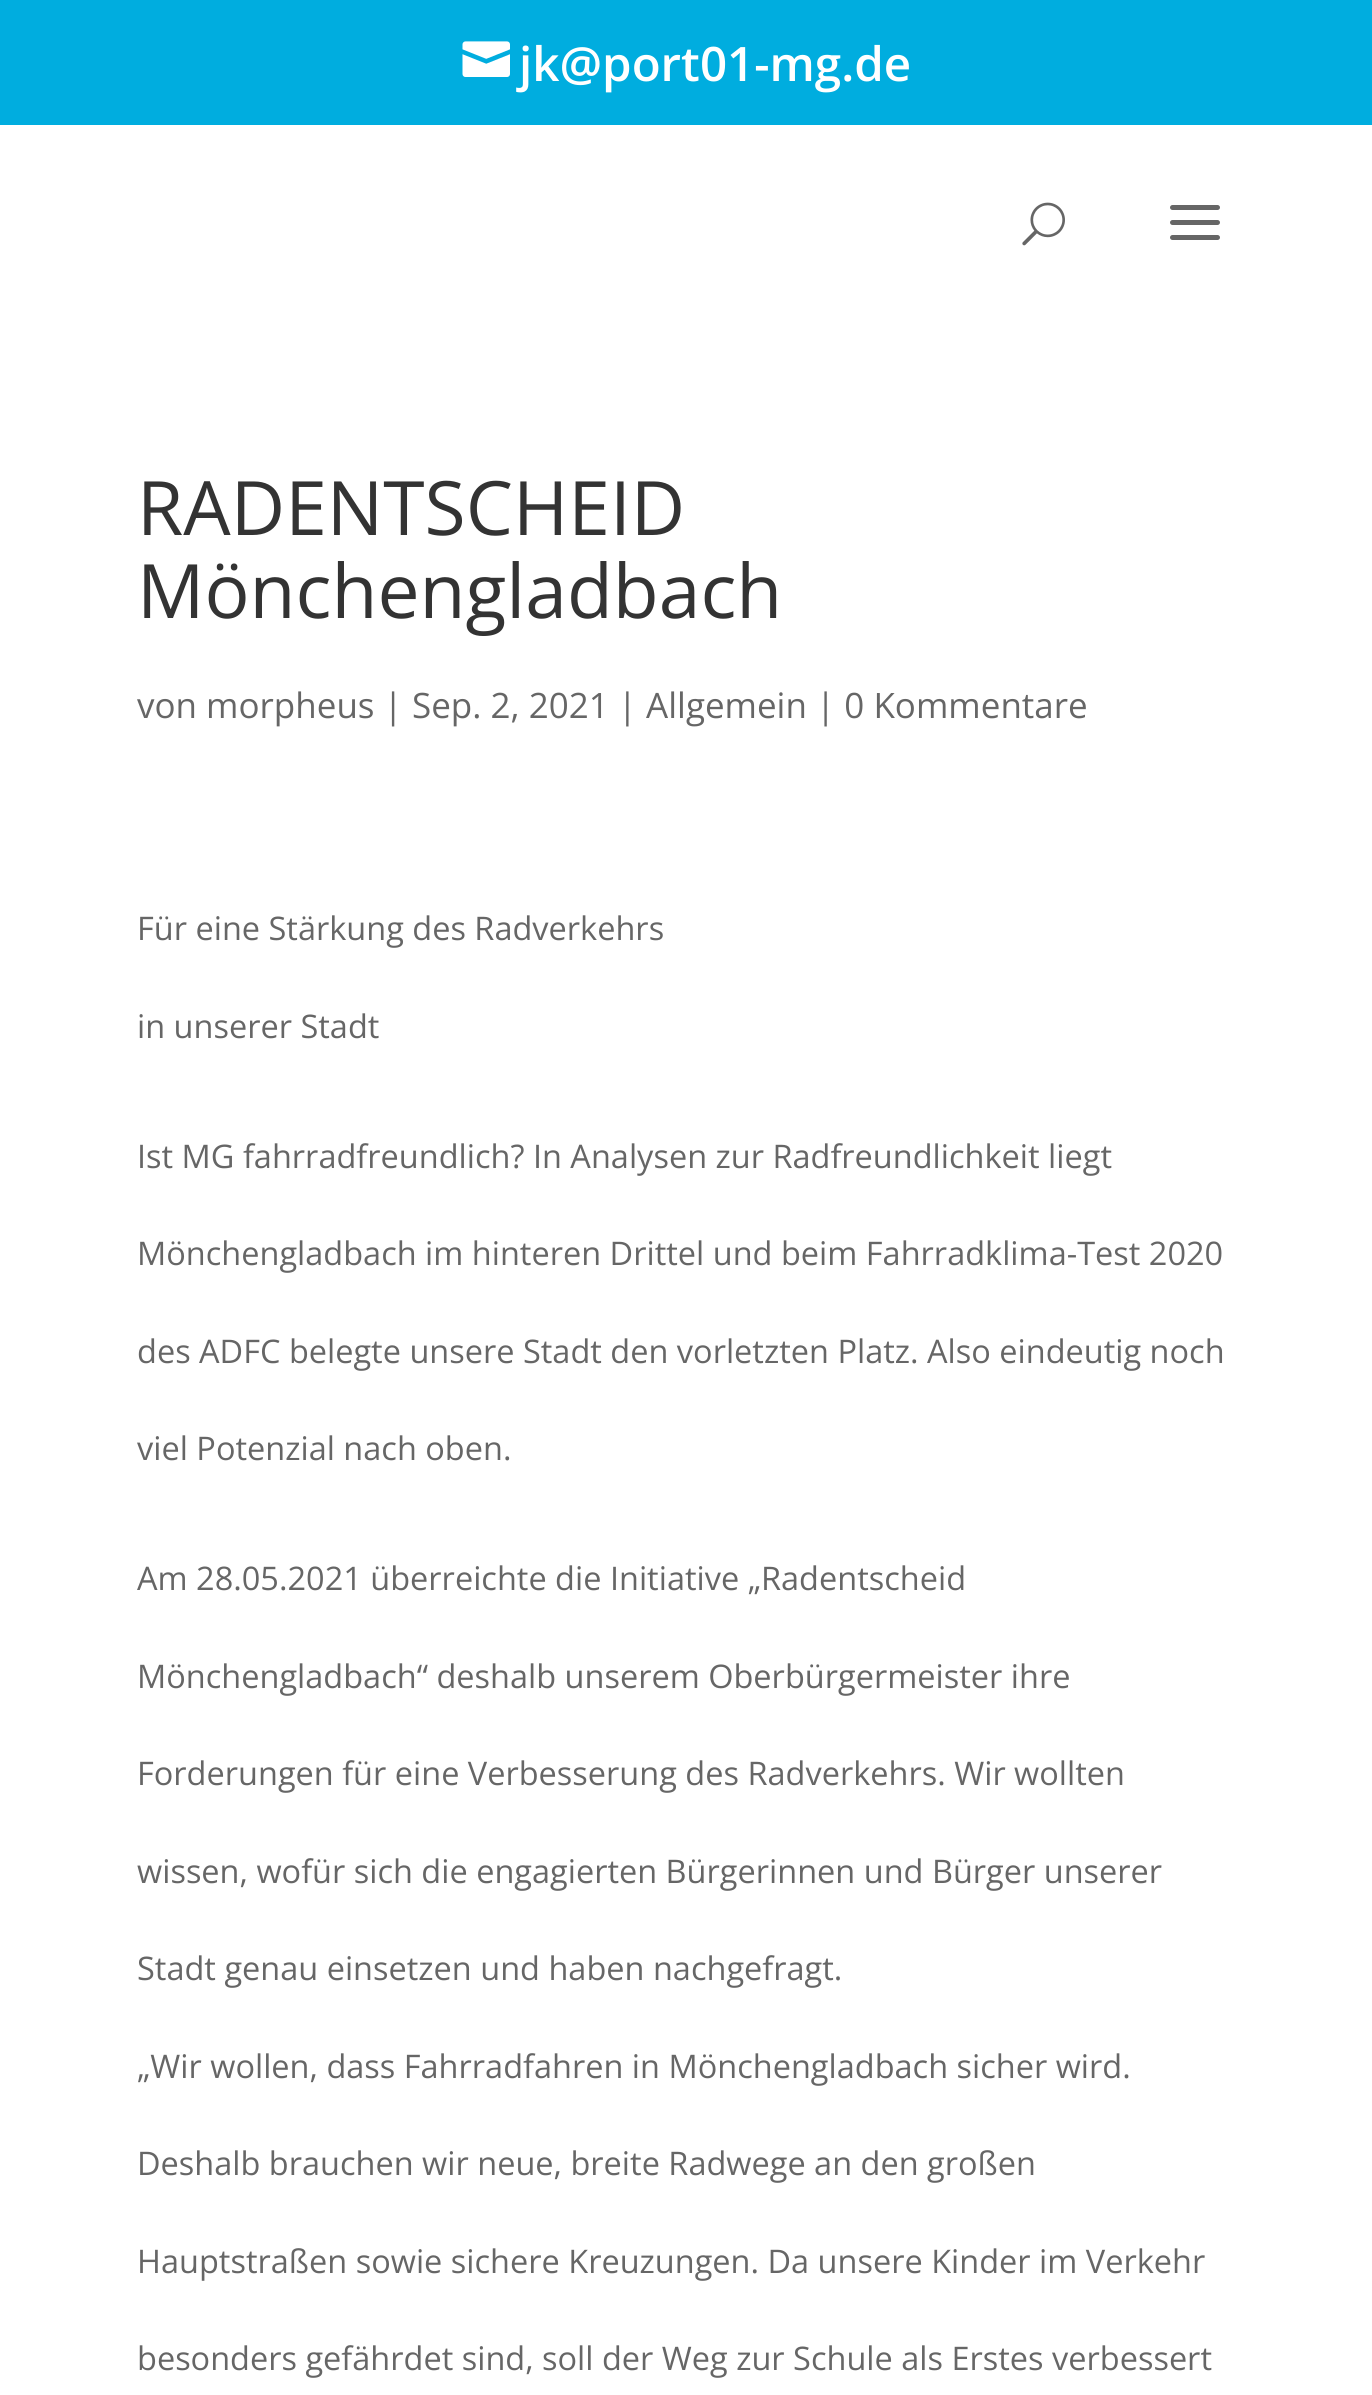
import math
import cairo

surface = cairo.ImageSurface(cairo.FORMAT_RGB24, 1372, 2395)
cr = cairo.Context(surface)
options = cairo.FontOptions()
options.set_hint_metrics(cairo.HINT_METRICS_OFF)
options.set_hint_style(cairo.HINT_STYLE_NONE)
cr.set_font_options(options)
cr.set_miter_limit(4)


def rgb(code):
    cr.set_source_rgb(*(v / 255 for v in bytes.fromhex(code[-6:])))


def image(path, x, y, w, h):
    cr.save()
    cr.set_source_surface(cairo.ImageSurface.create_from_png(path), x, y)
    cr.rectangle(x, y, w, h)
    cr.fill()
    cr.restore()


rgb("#ffffff")
cr.paint()
rgb("#00addf")
cr.rectangle(0, 0, 1372, 125)
cr.fill()
image("img/1.png", 462, 41, 48, 36)
image("img/2.png", 1022, 202, 43, 44)
image("img/3.png", 1170, 205, 50, 35)
cr.select_font_face("Open Sans SemiBold")
cr.set_font_size(47.5)
rgb("#ffffff")
cr.move_to(519, 81)
cr.show_text("jk@port01-mg.de")
cr.select_font_face("Open Sans")
cr.set_font_size(75)
rgb("#333333")
cr.move_to(137, 535)
cr.show_text("RADENTSCHEID")
cr.move_to(137, 618)
cr.show_text("Mönchengladbach")
cr.set_font_size(35)
rgb("#666666")
cr.move_to(137, 718)
cr.show_text("von morpheus | Sep. 2, 2021 | Allgemein | 0 Kommentare")
cr.set_font_size(32.5)
for x, y, s in [
    (137, 940, "Für eine Stärkung des Radverkehrs"),
    (137, 1038, "in unserer Stadt"),
    (137, 1168, "Ist MG fahrradfreundlich? In Analysen zur Radfreundlichkeit liegt"),
    (137, 1265, "Mönchengladbach im hinteren Drittel und beim Fahrradklima-Test 2020"),
    (137, 1363, "des ADFC belegte unsere Stadt den vorletzten Platz. Also eindeutig noch"),
    (137, 1460, "viel Potenzial nach oben."),
    (137, 1590, "Am 28.05.2021 überreichte die Initiative „Radentscheid"),
    (137, 1688, "Mönchengladbach“ deshalb unserem Oberbürgermeister ihre"),
    (137, 1785, "Forderungen für eine Verbesserung des Radverkehrs. Wir wollten"),
    (137, 1883, "wissen, wofür sich die engagierten Bürgerinnen und Bürger unserer"),
    (137, 1980, "Stadt genau einsetzen und haben nachgefragt."),
    (137, 2078, "„Wir wollen, dass Fahrradfahren in Mönchengladbach sicher wird."),
    (137, 2175, "Deshalb brauchen wir neue, breite Radwege an den großen"),
    (137, 2273, "Hauptstraßen sowie sichere Kreuzungen. Da unsere Kinder im Verkehr"),
    (137, 2370, "besonders gefährdet sind, soll der Weg zur Schule als Erstes verbessert"),
]:
    cr.move_to(x, y)
    cr.show_text(s)
surface.write_to_png("page.png")
